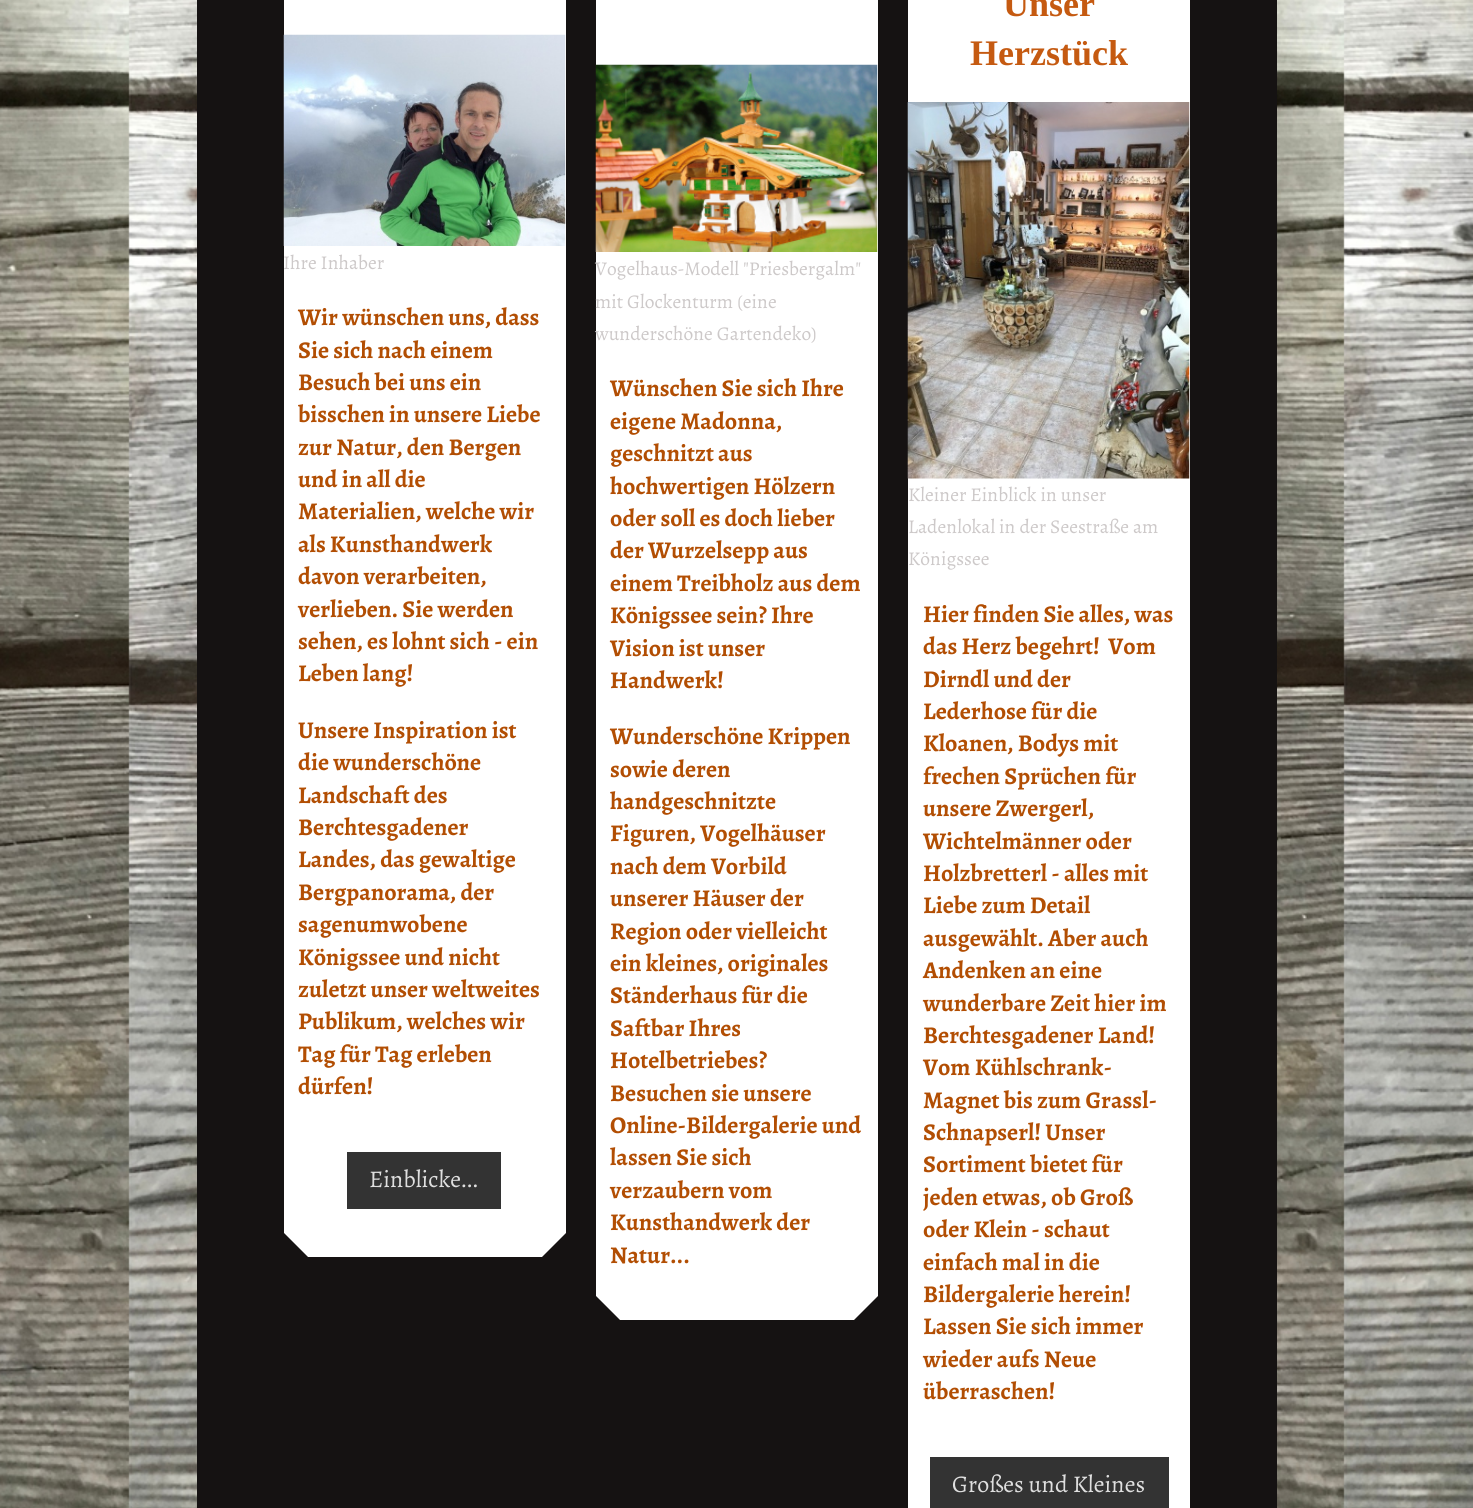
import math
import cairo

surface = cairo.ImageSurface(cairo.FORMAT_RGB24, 1473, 1508)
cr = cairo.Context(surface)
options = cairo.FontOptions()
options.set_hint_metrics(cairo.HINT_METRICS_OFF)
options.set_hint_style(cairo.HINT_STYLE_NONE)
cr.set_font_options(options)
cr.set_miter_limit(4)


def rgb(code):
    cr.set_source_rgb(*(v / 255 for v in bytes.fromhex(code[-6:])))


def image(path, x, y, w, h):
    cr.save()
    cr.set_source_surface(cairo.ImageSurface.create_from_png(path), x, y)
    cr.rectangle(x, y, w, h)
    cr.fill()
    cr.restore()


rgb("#ffffff")
cr.paint()
image("img/1.png", 0, 0, 1473, 1508)
rgb("#151212")
cr.rectangle(197, 0, 1080, 1508)
cr.fill()
rgb("#ffffff")
cr.rectangle(284, 0, 282, 1233)
cr.fill()
image("img/2.png", 283, 34, 283, 212)
rgb("#333333")
cr.rectangle(347, 1152, 154, 57)
cr.fill()
rgb("#ffffff")
cr.new_path()
cr.move_to(284, 1233)
cr.line_to(566, 1233)
cr.line_to(542, 1257)
cr.line_to(308, 1257)
cr.close_path()
cr.fill()
cr.rectangle(596, 0, 282, 1296)
cr.fill()
image("img/3.png", 595, 64, 283, 188)
cr.new_path()
cr.move_to(596, 1296)
cr.line_to(878, 1296)
cr.line_to(854, 1320)
cr.line_to(620, 1320)
cr.close_path()
cr.fill()
cr.rectangle(908, 0, 282, 1508)
cr.fill()
image("img/4.png", 907, 102, 283, 377)
rgb("#333333")
cr.rectangle(930, 1457, 239, 51)
cr.fill()
cr.select_font_face("Alegreya")
cr.set_font_size(19.5)
rgb("#cdc9c9")
cr.move_to(283, 269)
cr.show_text("Ihre Inhaber")
cr.select_font_face("Alegreya", cairo.FONT_SLANT_NORMAL, cairo.FONT_WEIGHT_BOLD)
cr.set_font_size(24)
rgb("#b24e03")
for x, y, s in [
    (298, 325, "Wir wünschen uns, dass"),
    (298, 358, "Sie sich nach einem"),
    (298, 390, "Besuch bei uns ein"),
    (298, 422, "bisschen in unsere Liebe"),
    (298, 455, "zur Natur, den Bergen"),
    (298, 487, "und in all die"),
    (298, 519, "Materialien, welche wir"),
    (298, 552, "als Kunsthandwerk"),
    (298, 584, "davon verarbeiten,"),
    (298, 617, "verlieben. Sie werden"),
    (298, 649, "sehen, es lohnt sich - ein"),
    (298, 681, "Leben lang!"),
    (298, 738, "Unsere Inspiration ist"),
    (298, 770, "die wunderschöne"),
    (298, 803, "Landschaft des"),
    (298, 835, "Berchtesgadener"),
    (298, 867, "Landes, das gewaltige"),
    (298, 900, "Bergpanorama, der"),
    (298, 932, "sagenumwobene"),
    (298, 965, "Königssee und nicht"),
    (298, 997, "zuletzt unser weltweites"),
    (298, 1029, "Publikum, welches wir"),
    (298, 1062, "Tag für Tag erleben"),
    (298, 1094, "dürfen!"),
]:
    cr.move_to(x, y)
    cr.show_text(s)
cr.select_font_face("Alegreya")
rgb("#dfdfdf")
cr.move_to(369, 1187)
cr.show_text("Einblicke...")
cr.set_font_size(19.5)
rgb("#cdc9c9")
for x, y, s in [
    (595, 275, "Vogelhaus-Modell \"Priesbergalm\""),
    (595, 308, "mit Glockenturm (eine"),
    (595, 340, "wunderschöne Gartendeko)"),
]:
    cr.move_to(x, y)
    cr.show_text(s)
cr.select_font_face("Alegreya", cairo.FONT_SLANT_NORMAL, cairo.FONT_WEIGHT_BOLD)
cr.set_font_size(24)
rgb("#b24e03")
for x, y, s in [
    (610, 396, "Wünschen Sie sich Ihre"),
    (610, 429, "eigene Madonna,"),
    (610, 461, "geschnitzt aus"),
    (610, 494, "hochwertigen Hölzern"),
    (610, 526, "oder soll es doch lieber"),
    (610, 558, "der Wurzelsepp aus"),
    (610, 591, "einem Treibholz aus dem"),
    (610, 623, "Königssee sein? Ihre"),
    (610, 656, "Vision ist unser"),
    (610, 688, "Handwerk!"),
    (610, 744, "Wunderschöne Krippen"),
    (610, 777, "sowie deren"),
    (610, 809, "handgeschnitzte"),
    (610, 841, "Figuren, Vogelhäuser"),
    (610, 874, "nach dem Vorbild"),
    (610, 906, "unserer Häuser der"),
    (610, 939, "Region oder vielleicht"),
    (610, 971, "ein kleines, originales"),
    (610, 1003, "Ständerhaus für die"),
    (610, 1036, "Saftbar Ihres"),
    (610, 1068, "Hotelbetriebes?"),
    (610, 1101, "Besuchen sie unsere"),
    (610, 1133, "Online-Bildergalerie und"),
    (610, 1165, "lassen Sie sich"),
    (610, 1198, "verzaubern vom"),
    (610, 1230, "Kunsthandwerk der"),
    (610, 1263, "Natur..."),
]:
    cr.move_to(x, y)
    cr.show_text(s)
cr.select_font_face("Liberation Serif", cairo.FONT_SLANT_NORMAL, cairo.FONT_WEIGHT_BOLD)
cr.set_font_size(36)
rgb("#c55a11")
cr.move_to(1003, 16)
cr.show_text("Unser")
cr.move_to(970, 65)
cr.show_text("Herzstück")
cr.select_font_face("Alegreya")
cr.set_font_size(19.5)
rgb("#cdc9c9")
for x, y, s in [
    (908, 501, "Kleiner Einblick in unser"),
    (908, 533, "Ladenlokal in der Seestraße am"),
    (908, 565, "Königssee"),
]:
    cr.move_to(x, y)
    cr.show_text(s)
cr.select_font_face("Alegreya", cairo.FONT_SLANT_NORMAL, cairo.FONT_WEIGHT_BOLD)
cr.set_font_size(24)
rgb("#b24e03")
for x, y, s in [
    (923, 622, "Hier finden Sie alles, was"),
    (923, 654, "das Herz begehrt!  Vom"),
    (923, 687, "Dirndl und der"),
    (923, 719, "Lederhose für die"),
    (923, 751, "Kloanen, Bodys mit"),
    (923, 784, "frechen Sprüchen für"),
    (923, 816, "unsere Zwergerl,"),
    (923, 849, "Wichtelmänner oder"),
    (923, 881, "Holzbretterl - alles mit"),
    (923, 913, "Liebe zum Detail"),
    (923, 946, "ausgewählt. Aber auch"),
    (923, 978, "Andenken an eine"),
    (923, 1011, "wunderbare Zeit hier im"),
    (923, 1043, "Berchtesgadener Land!"),
    (923, 1075, "Vom Kühlschrank-"),
    (923, 1108, "Magnet bis zum Grassl-"),
    (923, 1140, "Schnapserl! Unser"),
    (923, 1172, "Sortiment bietet für"),
    (923, 1205, "jeden etwas, ob Groß"),
    (923, 1237, "oder Klein - schaut"),
    (923, 1270, "einfach mal in die"),
    (923, 1302, "Bildergalerie herein!"),
    (923, 1334, "Lassen Sie sich immer"),
    (923, 1367, "wieder aufs Neue"),
    (923, 1399, "überraschen!"),
]:
    cr.move_to(x, y)
    cr.show_text(s)
cr.select_font_face("Alegreya")
rgb("#dfdfdf")
cr.move_to(952, 1492)
cr.show_text("Großes und Kleines")
surface.write_to_png("page.png")
